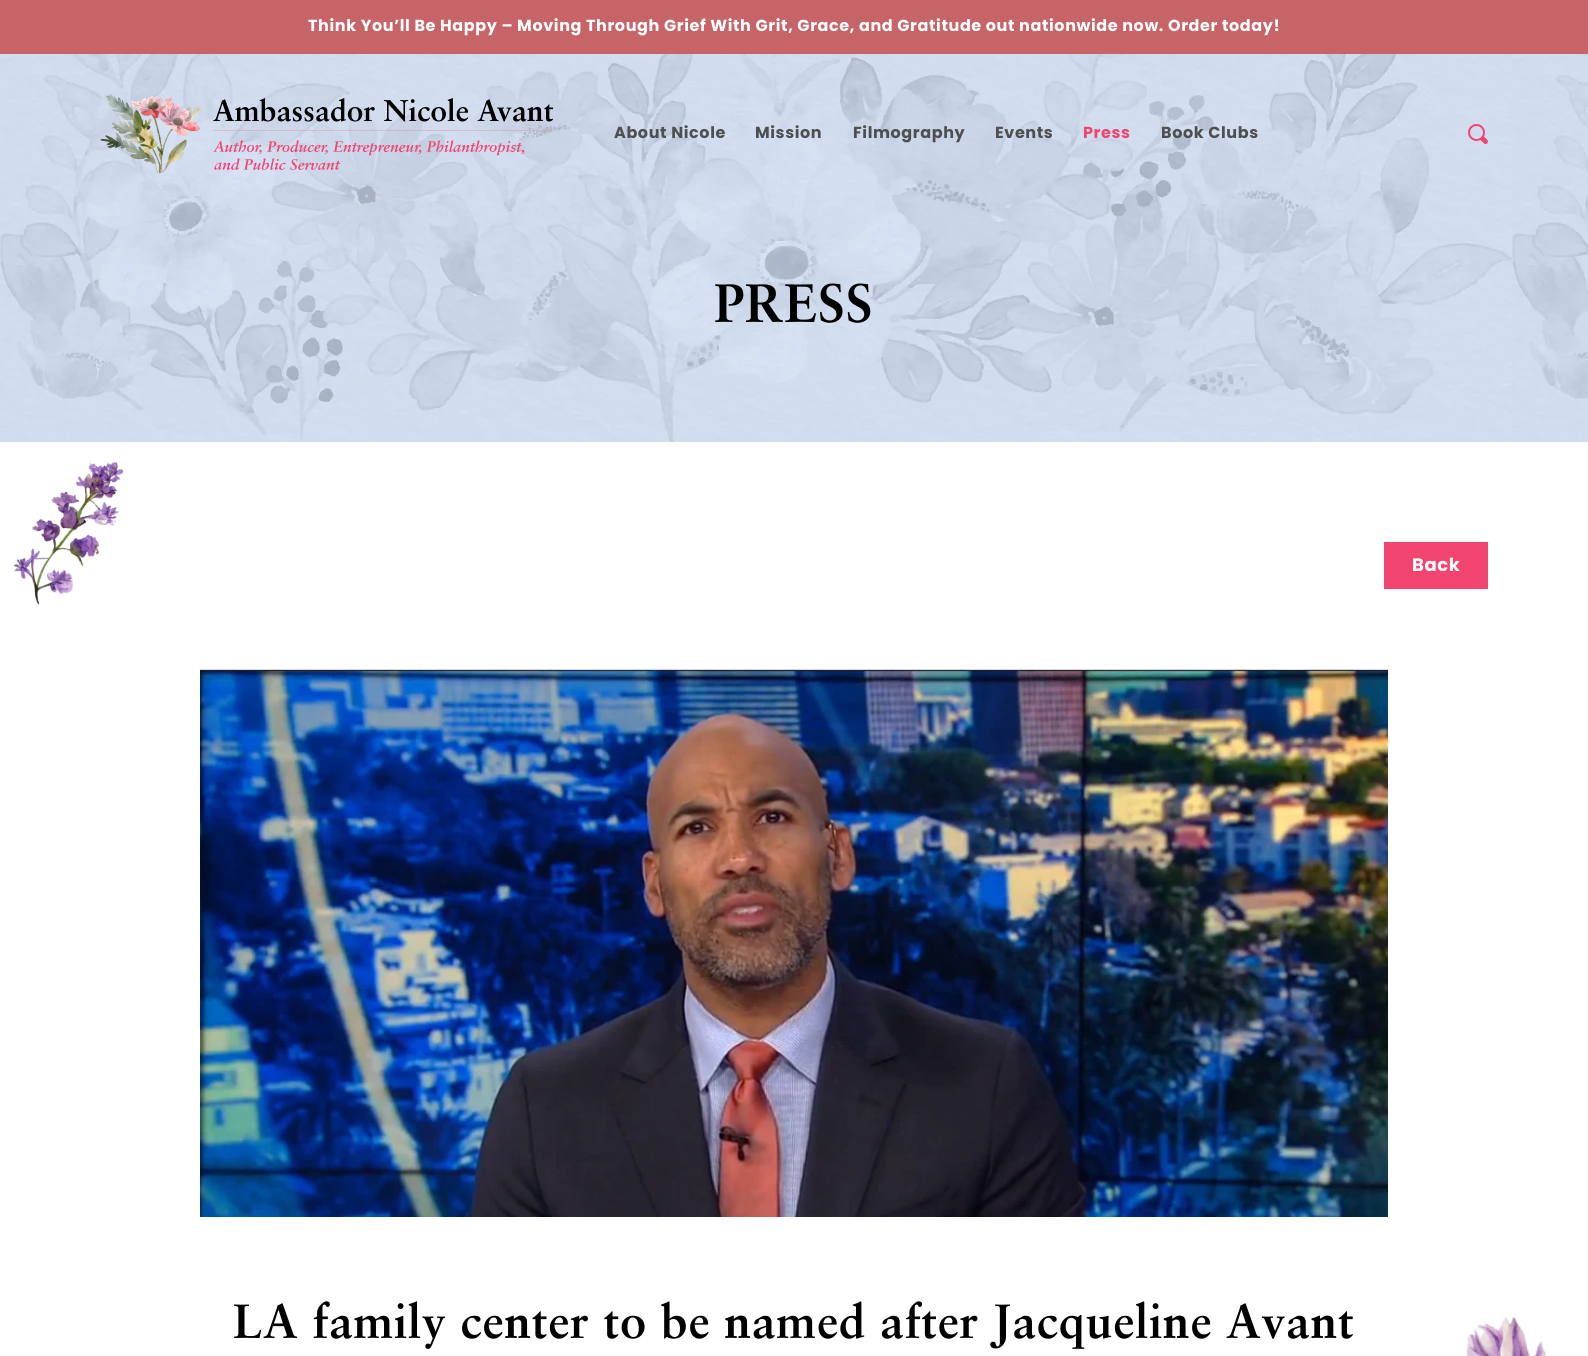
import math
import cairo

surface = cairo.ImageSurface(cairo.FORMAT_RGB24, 1588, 1356)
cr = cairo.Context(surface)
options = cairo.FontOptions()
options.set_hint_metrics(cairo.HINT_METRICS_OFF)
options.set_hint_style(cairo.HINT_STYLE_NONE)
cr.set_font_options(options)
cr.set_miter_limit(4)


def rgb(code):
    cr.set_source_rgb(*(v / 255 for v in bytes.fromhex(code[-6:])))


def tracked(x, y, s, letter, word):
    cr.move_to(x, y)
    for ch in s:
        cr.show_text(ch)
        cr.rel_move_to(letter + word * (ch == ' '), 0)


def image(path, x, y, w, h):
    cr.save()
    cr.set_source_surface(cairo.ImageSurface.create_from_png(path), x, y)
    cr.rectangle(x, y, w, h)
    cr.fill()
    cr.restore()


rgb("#ffffff")
cr.paint()
rgb("#c76467")
cr.rectangle(0, 0, 1588, 54)
cr.fill()
image("img/3.png", 0, 54, 1588, 388)
image("img/1.png", 100, 94, 454, 80)
image("img/2.png", 1468, 124, 20, 20)
image("img/4.png", 13, 462, 111, 143)
image("img/5.png", 200, 669, 1188, 548)
rgb("#f14570")
cr.rectangle(1384, 542, 104, 47)
cr.fill()
image("img/6.png", 1466, 1317, 80, 39)
cr.select_font_face("Poppins", cairo.FONT_SLANT_NORMAL, cairo.FONT_WEIGHT_BOLD)
cr.set_font_size(16)
rgb("#ffffff")
tracked(308, 31, "Think You’ll Be Happy – Moving Through Grief With Grit, Grace, and Gratitude out nationwide now. Order today!", 0.6, 0)
rgb("#4f4f4f")
for x, y, s in [
    (614, 138, "About Nicole"),
    (755, 138, "Mission"),
    (853, 138, "Filmography"),
    (995, 138, "Events"),
]:
    tracked(x, y, s, 0.6, 0)
rgb("#f14570")
tracked(1083, 138, "Press", 0.6, 0)
rgb("#4f4f4f")
tracked(1161, 138, "Book Clubs", 0.6, 0)
cr.select_font_face("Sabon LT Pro", cairo.FONT_SLANT_NORMAL, cairo.FONT_WEIGHT_BOLD)
cr.set_font_size(54)
rgb("#000000")
tracked(714, 322, "PRESS", 0.6, 0)
cr.select_font_face("Poppins", cairo.FONT_SLANT_NORMAL, cairo.FONT_WEIGHT_BOLD)
cr.set_font_size(18)
rgb("#ffffff")
tracked(1412, 571, "Back", 0.6, 0)
cr.select_font_face("Sabon LT Pro", cairo.FONT_SLANT_NORMAL, cairo.FONT_WEIGHT_BOLD)
cr.set_font_size(48)
rgb("#000000")
tracked(233, 1338, "LA family center to be named after Jacqueline Avant", 0.6, 0)
surface.write_to_png("page.png")
